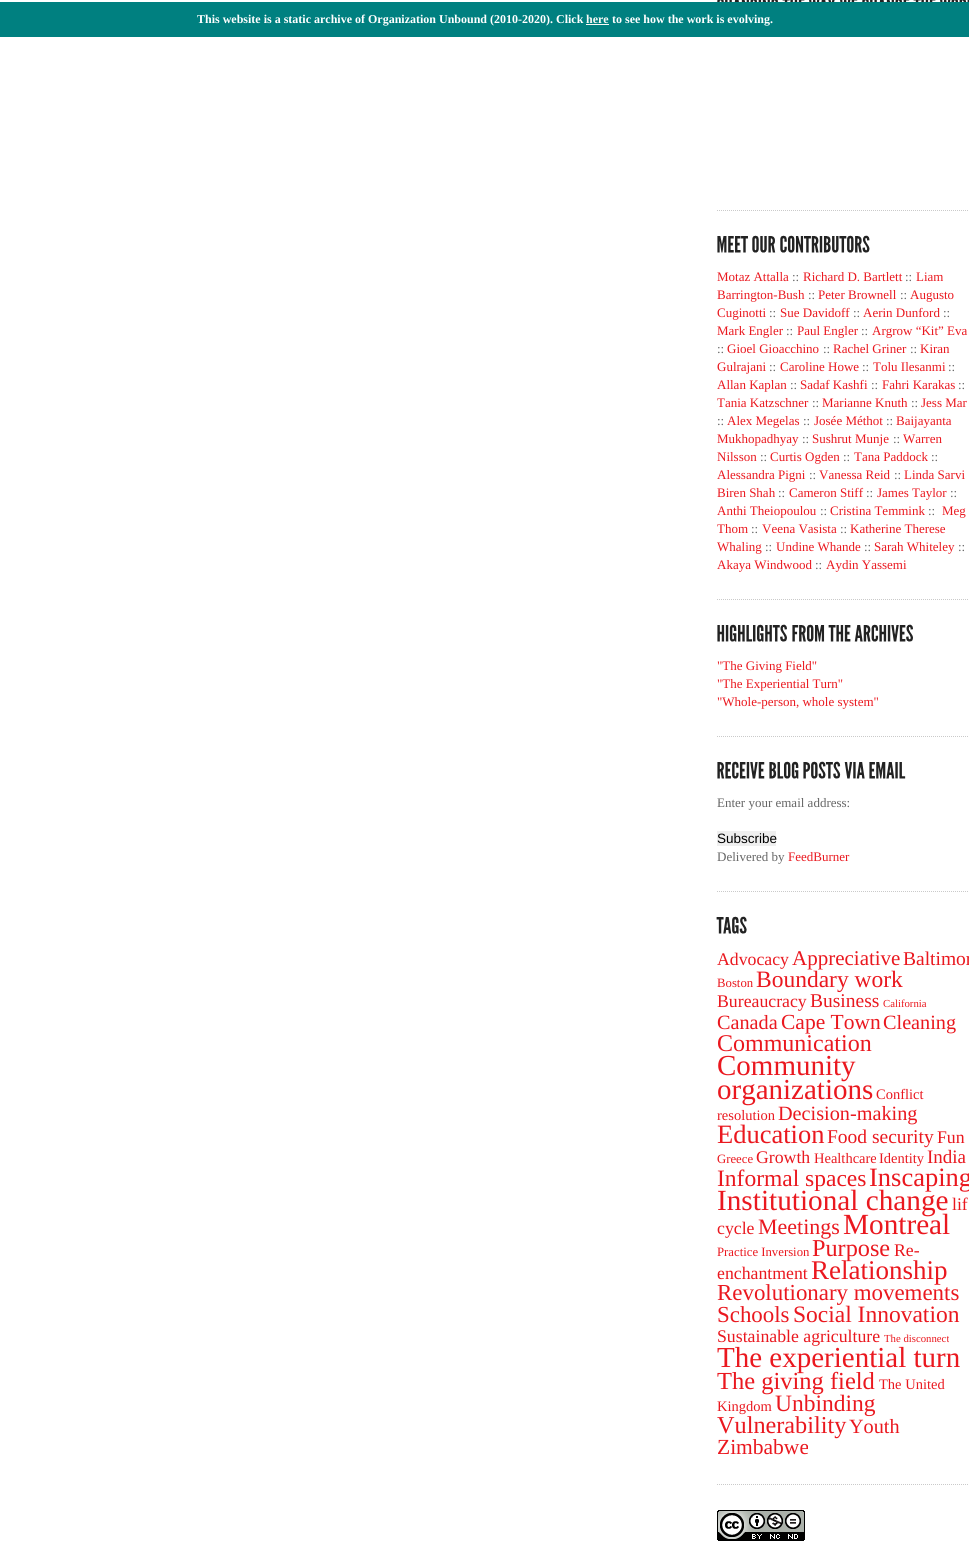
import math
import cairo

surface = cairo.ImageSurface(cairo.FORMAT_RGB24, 969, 1543)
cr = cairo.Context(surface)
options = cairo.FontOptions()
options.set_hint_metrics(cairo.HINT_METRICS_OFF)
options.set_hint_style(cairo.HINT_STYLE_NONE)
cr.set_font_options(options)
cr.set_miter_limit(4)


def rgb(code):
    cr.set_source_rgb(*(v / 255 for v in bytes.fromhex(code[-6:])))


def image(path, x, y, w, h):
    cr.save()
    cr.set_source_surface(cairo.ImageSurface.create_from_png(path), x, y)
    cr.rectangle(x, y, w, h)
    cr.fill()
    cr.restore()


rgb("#ffffff")
cr.paint()
rgb("#008080")
cr.rectangle(0, 2, 969, 35)
cr.fill()
rgb("#faf9f6")
cr.rectangle(586, 24, 23, 1)
cr.fill()
cr.new_path()
cr.move_to(717, 210.5)
cr.line_to(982, 210.5)
rgb("#cacaca")
cr.set_line_width(1)
cr.set_dash([1, 1])
cr.stroke()
image("img/1.png", 717, 0, 61, 2)
image("img/2.png", 782, 0, 23, 2)
image("img/3.png", 809, 0, 26, 2)
image("img/4.png", 840, 0, 18, 2)
image("img/5.png", 862, 0, 48, 2)
image("img/2.png", 913, 0, 23, 2)
image("img/6.png", 940, 0, 29, 2)
cr.new_path()
cr.move_to(717, 599.5)
cr.line_to(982, 599.5)
cr.stroke()
image("img/7.png", 717, 236, 31, 17)
image("img/8.png", 752, 235, 24, 18)
image("img/9.png", 780, 235, 90, 18)
cr.new_path()
cr.move_to(717, 736.5)
cr.line_to(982, 736.5)
cr.stroke()
image("img/10.png", 717, 624, 70, 18)
image("img/11.png", 792, 624, 33, 18)
image("img/12.png", 828, 625, 23, 17)
image("img/13.png", 854, 624, 59, 18)
cr.new_path()
cr.move_to(717, 891.5)
cr.line_to(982, 891.5)
cr.stroke()
image("img/14.png", 717, 761, 48, 18)
image("img/15.png", 769, 761, 30, 18)
image("img/16.png", 803, 761, 38, 18)
image("img/17.png", 844, 762, 21, 17)
image("img/18.png", 869, 762, 37, 17)
rgb("#efefef")
cr.rectangle(717, 831, 59, 15)
cr.fill()
cr.new_path()
cr.move_to(717, 1484.5)
cr.line_to(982, 1484.5)
rgb("#cacaca")
cr.stroke()
image("img/19.png", 716, 916, 31, 18)
image("img/20.png", 717, 1510, 88, 31)
cr.select_font_face("Liberation Serif", cairo.FONT_SLANT_NORMAL, cairo.FONT_WEIGHT_BOLD)
cr.set_font_size(12)
rgb("#ffffff")
cr.move_to(197, 23)
cr.show_text("This website is a static archive of Organization Unbound (2010-2020). Click")
rgb("#faf9f6")
cr.move_to(586, 23)
cr.show_text("here")
rgb("#ffffff")
cr.move_to(612, 23)
cr.show_text("to see how the work is evolving.")
cr.select_font_face("Liberation Serif")
cr.set_font_size(13)
rgb("#ea181f")
cr.move_to(717, 281)
cr.show_text("Motaz Attalla")
rgb("#666666")
cr.move_to(792, 281)
cr.show_text("::")
rgb("#ea181f")
cr.move_to(803, 281)
cr.show_text("Richard D. Bartlett")
rgb("#666666")
cr.move_to(905, 281)
cr.show_text("::")
rgb("#ea181f")
cr.move_to(916, 281)
cr.show_text("Liam")
cr.move_to(717, 299)
cr.show_text("Barrington-Bush")
rgb("#666666")
cr.move_to(808, 299)
cr.show_text("::")
rgb("#ea181f")
cr.move_to(818, 299)
cr.show_text("Peter Brownell")
rgb("#666666")
cr.move_to(900, 299)
cr.show_text("::")
rgb("#ea181f")
cr.move_to(910, 299)
cr.show_text("Augusto")
cr.move_to(717, 317)
cr.show_text("Cuginotti")
rgb("#666666")
cr.move_to(769, 317)
cr.show_text("::")
rgb("#ea181f")
cr.move_to(780, 317)
cr.show_text("Sue Davidoff")
rgb("#666666")
cr.move_to(853, 317)
cr.show_text("::")
rgb("#ea181f")
cr.move_to(863, 317)
cr.show_text("Aerin Dunford")
rgb("#666666")
cr.move_to(943, 317)
cr.show_text("::")
rgb("#ea181f")
cr.move_to(717, 335)
cr.show_text("Mark Engler")
rgb("#666666")
cr.move_to(786, 335)
cr.show_text("::")
rgb("#ea181f")
cr.move_to(797, 335)
cr.show_text("Paul Engler")
rgb("#666666")
cr.move_to(861, 335)
cr.show_text("::")
rgb("#ea181f")
cr.move_to(872, 335)
cr.show_text("Argrow “Kit” Eva")
rgb("#666666")
cr.move_to(717, 353)
cr.show_text("::")
rgb("#ea181f")
cr.move_to(727, 353)
cr.show_text("Gioel Gioacchino")
rgb("#666666")
cr.move_to(823, 353)
cr.show_text("::")
rgb("#ea181f")
cr.move_to(833, 353)
cr.show_text("Rachel Griner")
rgb("#666666")
cr.move_to(910, 353)
cr.show_text("::")
rgb("#ea181f")
cr.move_to(920, 353)
cr.show_text("Kiran")
cr.move_to(717, 371)
cr.show_text("Gulrajani")
rgb("#666666")
cr.move_to(769, 371)
cr.show_text("::")
rgb("#ea181f")
cr.move_to(780, 371)
cr.show_text("Caroline Howe")
rgb("#666666")
cr.move_to(862, 371)
cr.show_text("::")
rgb("#ea181f")
cr.move_to(873, 371)
cr.show_text("Tolu Ilesanmi")
rgb("#666666")
cr.move_to(948, 371)
cr.show_text("::")
rgb("#ea181f")
cr.move_to(717, 389)
cr.show_text("Allan Kaplan")
rgb("#666666")
cr.move_to(790, 389)
cr.show_text("::")
rgb("#ea181f")
cr.move_to(800, 389)
cr.show_text("Sadaf Kashfi")
rgb("#666666")
cr.move_to(871, 389)
cr.show_text("::")
rgb("#ea181f")
cr.move_to(882, 389)
cr.show_text("Fahri Karakas")
rgb("#666666")
cr.move_to(958, 389)
cr.show_text("::")
rgb("#ea181f")
cr.move_to(717, 407)
cr.show_text("Tania Katzschner")
rgb("#666666")
cr.move_to(812, 407)
cr.show_text("::")
rgb("#ea181f")
cr.move_to(822, 407)
cr.show_text("Marianne Knuth")
rgb("#666666")
cr.move_to(911, 407)
cr.show_text("::")
rgb("#ea181f")
cr.move_to(921, 407)
cr.show_text("Jess Mar")
rgb("#666666")
cr.move_to(717, 425)
cr.show_text("::")
rgb("#ea181f")
cr.move_to(727, 425)
cr.show_text("Alex Megelas")
rgb("#666666")
cr.move_to(803, 425)
cr.show_text("::")
rgb("#ea181f")
cr.move_to(814, 425)
cr.show_text("Josée Méthot")
rgb("#666666")
cr.move_to(886, 425)
cr.show_text("::")
rgb("#ea181f")
cr.move_to(896, 425)
cr.show_text("Baijayanta")
cr.move_to(717, 443)
cr.show_text("Mukhopadhyay")
rgb("#666666")
cr.move_to(802, 443)
cr.show_text("::")
rgb("#ea181f")
cr.move_to(812, 443)
cr.show_text("Sushrut Munje")
rgb("#666666")
cr.move_to(893, 443)
cr.show_text("::")
rgb("#ea181f")
cr.move_to(903, 443)
cr.show_text("Warren")
cr.move_to(717, 461)
cr.show_text("Nilsson")
rgb("#666666")
cr.move_to(760, 461)
cr.show_text("::")
rgb("#ea181f")
cr.move_to(770, 461)
cr.show_text("Curtis Ogden")
rgb("#666666")
cr.move_to(843, 461)
cr.show_text("::")
rgb("#ea181f")
cr.move_to(854, 461)
cr.show_text("Tana Paddock")
rgb("#666666")
cr.move_to(931, 461)
cr.show_text("::")
rgb("#ea181f")
cr.move_to(717, 479)
cr.show_text("Alessandra Pigni")
rgb("#666666")
cr.move_to(809, 479)
cr.show_text("::")
rgb("#ea181f")
cr.move_to(819, 479)
cr.show_text("Vanessa Reid")
rgb("#666666")
cr.move_to(894, 479)
cr.show_text("::")
rgb("#ea181f")
cr.move_to(904, 479)
cr.show_text("Linda Sarvi")
cr.move_to(717, 497)
cr.show_text("Biren Shah")
rgb("#666666")
cr.move_to(778, 497)
cr.show_text("::")
rgb("#ea181f")
cr.move_to(789, 497)
cr.show_text("Cameron Stiff")
rgb("#666666")
cr.move_to(866, 497)
cr.show_text("::")
rgb("#ea181f")
cr.move_to(877, 497)
cr.show_text("James Taylor")
rgb("#666666")
cr.move_to(950, 497)
cr.show_text("::")
rgb("#ea181f")
cr.move_to(717, 515)
cr.show_text("Anthi Theiopoulou")
rgb("#666666")
cr.move_to(820, 515)
cr.show_text("::")
rgb("#ea181f")
cr.move_to(830, 515)
cr.show_text("Cristina Temmink")
rgb("#666666")
cr.move_to(928, 515)
cr.show_text("::")
rgb("#ea181f")
cr.move_to(942, 515)
cr.show_text("Meg")
cr.move_to(717, 533)
cr.show_text("Thom")
rgb("#666666")
cr.move_to(751, 533)
cr.show_text("::")
rgb("#ea181f")
cr.move_to(762, 533)
cr.show_text("Veena Vasista")
rgb("#666666")
cr.move_to(840, 533)
cr.show_text("::")
rgb("#ea181f")
cr.move_to(850, 533)
cr.show_text("Katherine Therese")
cr.move_to(717, 551)
cr.show_text("Whaling")
rgb("#666666")
cr.move_to(765, 551)
cr.show_text("::")
rgb("#ea181f")
cr.move_to(776, 551)
cr.show_text("Undine Whande")
rgb("#666666")
cr.move_to(864, 551)
cr.show_text("::")
rgb("#ea181f")
cr.move_to(874, 551)
cr.show_text("Sarah Whiteley")
rgb("#666666")
cr.move_to(958, 551)
cr.show_text("::")
rgb("#ea181f")
cr.move_to(717, 569)
cr.show_text("Akaya Windwood")
rgb("#666666")
cr.move_to(815, 569)
cr.show_text("::")
rgb("#ea181f")
for x, y, s in [
    (826, 569, "Aydin Yassemi"),
    (717, 670, "\"The Giving Field\""),
    (717, 688, "\"The Experiential Turn\""),
    (717, 706, "\"Whole-person, whole system\""),
]:
    cr.move_to(x, y)
    cr.show_text(s)
rgb("#666666")
cr.move_to(717, 807)
cr.show_text("Enter your email address:")
cr.select_font_face("Liberation Sans")
cr.set_font_size(13.5)
rgb("#000000")
cr.move_to(717, 843)
cr.show_text("Subscribe")
cr.select_font_face("Liberation Serif")
cr.set_font_size(13)
rgb("#666666")
cr.move_to(717, 861)
cr.show_text("Delivered by")
rgb("#ea181f")
cr.move_to(788, 861)
cr.show_text("FeedBurner")
cr.set_font_size(17.75)
cr.move_to(717, 965)
cr.show_text("Advocacy")
cr.set_font_size(21)
cr.move_to(792, 965)
cr.show_text("Appreciative")
cr.set_font_size(19.5)
cr.move_to(903, 965)
cr.show_text("Baltimor")
cr.set_font_size(12.75)
cr.move_to(717, 987)
cr.show_text("Boston")
cr.set_font_size(23.5)
cr.move_to(756, 987)
cr.show_text("Boundary work")
cr.set_font_size(17.75)
cr.move_to(717, 1007)
cr.show_text("Bureaucracy")
cr.set_font_size(19.5)
cr.move_to(810, 1007)
cr.show_text("Business")
cr.set_font_size(10.75)
cr.move_to(883, 1007)
cr.show_text("California")
cr.set_font_size(20.25)
cr.move_to(717, 1029)
cr.show_text("Canada")
cr.set_font_size(21.5)
cr.move_to(781, 1029)
cr.show_text("Cape Town")
cr.set_font_size(20.25)
cr.move_to(883, 1029)
cr.show_text("Cleaning")
cr.set_font_size(24)
cr.move_to(717, 1051)
cr.show_text("Communication")
cr.set_font_size(29)
cr.move_to(717, 1075)
cr.show_text("Community")
cr.move_to(717, 1099)
cr.show_text("organizations")
cr.set_font_size(14.5)
cr.move_to(876, 1099)
cr.show_text("Conflict")
cr.move_to(717, 1120)
cr.show_text("resolution")
cr.set_font_size(20.25)
cr.move_to(778, 1120)
cr.show_text("Decision-making")
cr.set_font_size(26.5)
cr.move_to(717, 1143)
cr.show_text("Education")
cr.set_font_size(19.5)
cr.move_to(827, 1143)
cr.show_text("Food security")
cr.set_font_size(17.75)
cr.move_to(937, 1143)
cr.show_text("Fun")
cr.set_font_size(12.75)
cr.move_to(717, 1163)
cr.show_text("Greece")
cr.set_font_size(17.75)
cr.move_to(756, 1163)
cr.show_text("Growth")
cr.set_font_size(14.5)
cr.move_to(814, 1163)
cr.show_text("Healthcare")
cr.move_to(879, 1163)
cr.show_text("Identity")
cr.set_font_size(19)
cr.move_to(927, 1163)
cr.show_text("India")
cr.set_font_size(23.5)
cr.move_to(717, 1186)
cr.show_text("Informal spaces")
cr.set_font_size(26.5)
cr.move_to(869, 1186)
cr.show_text("Inscaping")
cr.set_font_size(29.25)
cr.move_to(717, 1210)
cr.show_text("Institutional change")
cr.set_font_size(17.75)
cr.move_to(952, 1210)
cr.show_text("lif")
cr.move_to(717, 1234)
cr.show_text("cycle")
cr.set_font_size(22)
cr.move_to(758, 1234)
cr.show_text("Meetings")
cr.set_font_size(29.25)
cr.move_to(843, 1234)
cr.show_text("Montreal")
cr.set_font_size(12.75)
cr.move_to(717, 1256)
cr.show_text("Practice Inversion")
cr.set_font_size(24.25)
cr.move_to(812, 1256)
cr.show_text("Purpose")
cr.set_font_size(17.75)
cr.move_to(894, 1256)
cr.show_text("Re-")
cr.move_to(717, 1279)
cr.show_text("enchantment")
cr.set_font_size(27)
cr.move_to(811, 1279)
cr.show_text("Relationship")
cr.set_font_size(22.9)
cr.move_to(717, 1300)
cr.show_text("Revolutionary movements")
cr.move_to(717, 1322)
cr.show_text("Schools")
cr.set_font_size(23.5)
cr.move_to(793, 1322)
cr.show_text("Social Innovation")
cr.set_font_size(17.75)
cr.move_to(717, 1342)
cr.show_text("Sustainable agriculture")
cr.set_font_size(10.75)
cr.move_to(884, 1342)
cr.show_text("The disconnect")
cr.set_font_size(29)
cr.move_to(717, 1367)
cr.show_text("The experiential turn")
cr.set_font_size(24.5)
cr.move_to(717, 1389)
cr.show_text("The giving field")
cr.set_font_size(14.5)
cr.move_to(879, 1389)
cr.show_text("The United")
cr.move_to(717, 1411)
cr.show_text("Kingdom")
cr.set_font_size(23.5)
cr.move_to(775, 1411)
cr.show_text("Unbinding")
cr.set_font_size(24.25)
cr.move_to(717, 1433)
cr.show_text("Vulnerability")
cr.set_font_size(20.25)
cr.move_to(849, 1433)
cr.show_text("Youth")
cr.set_font_size(21.5)
cr.move_to(717, 1454)
cr.show_text("Zimbabwe")
surface.write_to_png("page.png")
